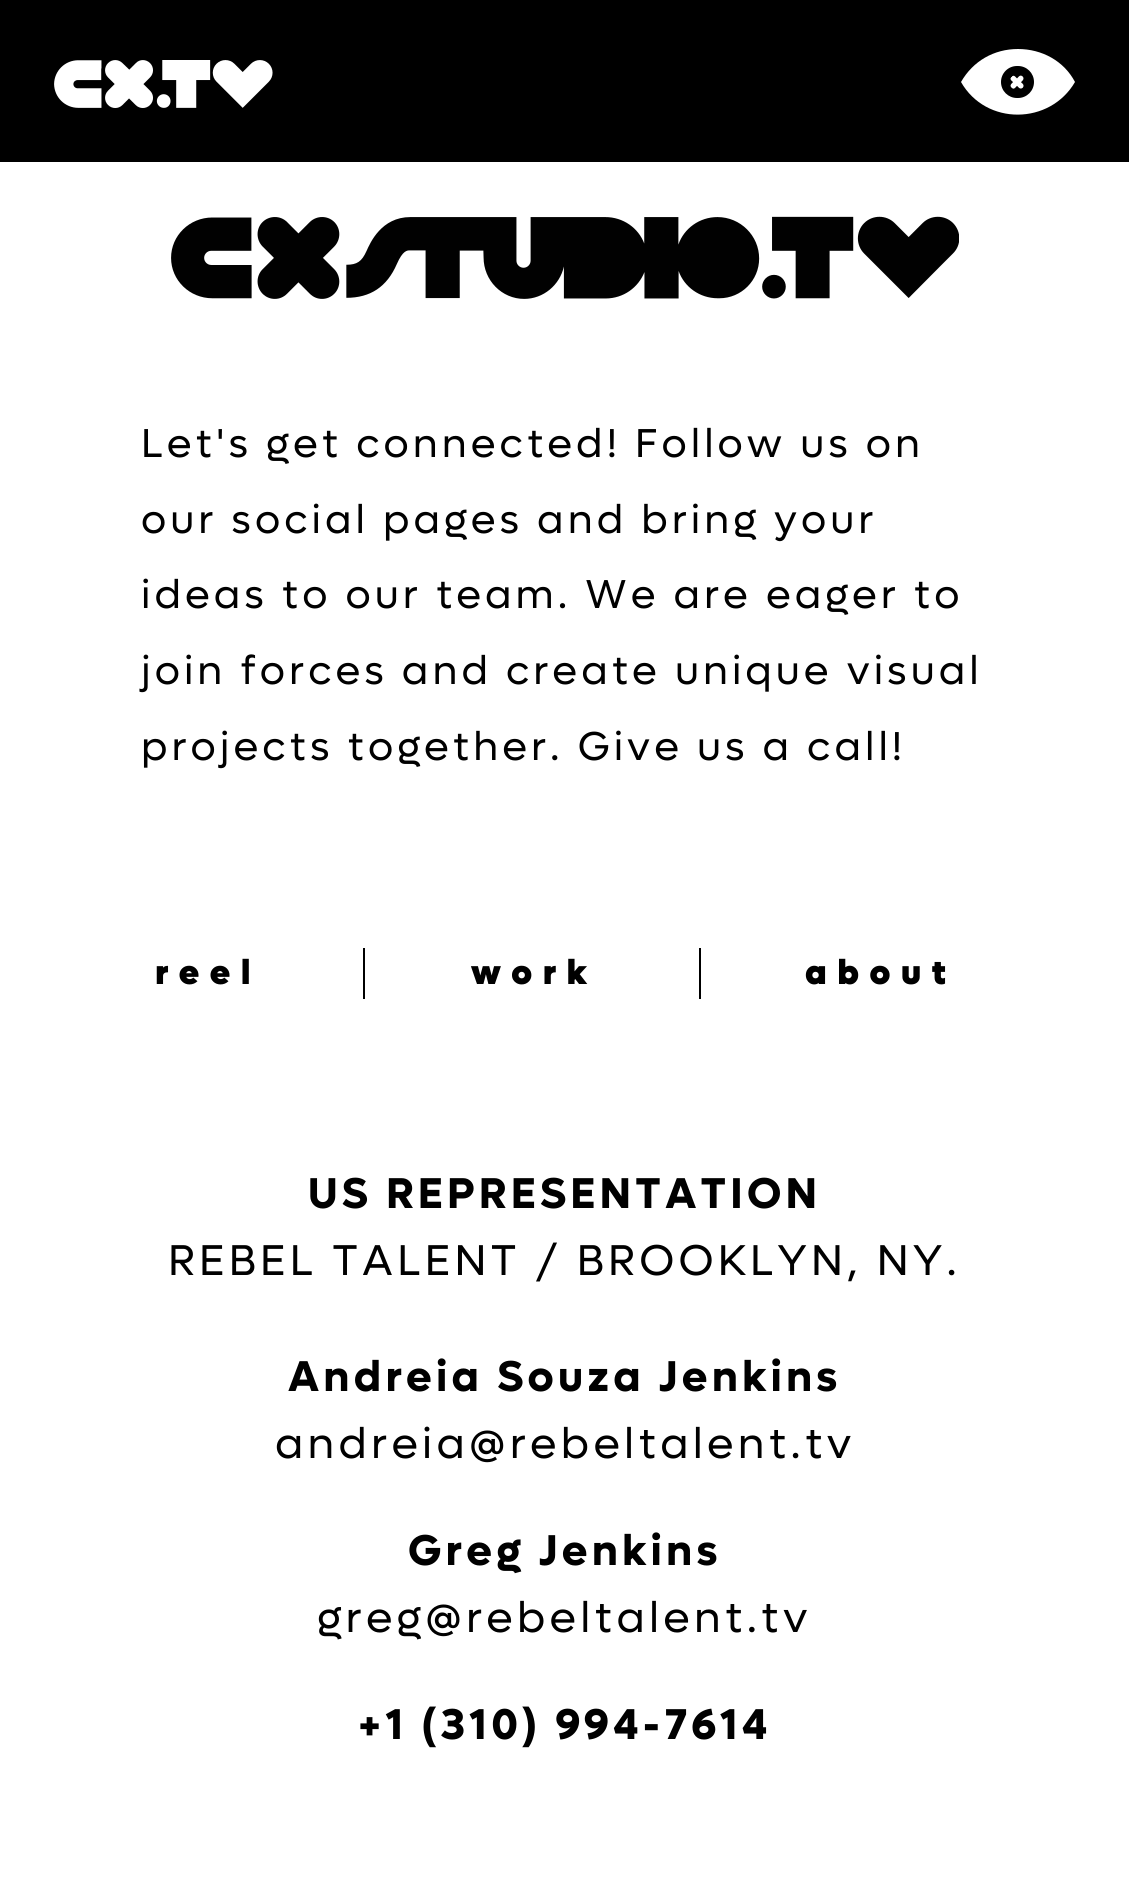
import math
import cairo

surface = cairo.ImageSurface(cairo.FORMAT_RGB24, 1129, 1898)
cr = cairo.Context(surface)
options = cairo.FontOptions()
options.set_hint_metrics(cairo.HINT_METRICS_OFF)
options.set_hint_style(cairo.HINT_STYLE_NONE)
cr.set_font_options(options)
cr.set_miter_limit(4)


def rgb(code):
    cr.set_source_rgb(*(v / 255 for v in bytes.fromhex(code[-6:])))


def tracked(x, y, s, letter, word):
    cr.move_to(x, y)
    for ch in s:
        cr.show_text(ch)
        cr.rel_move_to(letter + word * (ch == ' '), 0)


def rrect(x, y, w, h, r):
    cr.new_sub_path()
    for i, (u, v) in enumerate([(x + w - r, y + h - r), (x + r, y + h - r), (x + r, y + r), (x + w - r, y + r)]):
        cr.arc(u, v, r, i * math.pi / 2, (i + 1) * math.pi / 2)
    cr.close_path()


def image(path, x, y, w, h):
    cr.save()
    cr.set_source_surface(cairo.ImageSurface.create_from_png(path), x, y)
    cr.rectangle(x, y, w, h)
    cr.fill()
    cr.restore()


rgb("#ffffff")
cr.paint()
rgb("#000000")
cr.rectangle(0, 0, 1129, 162)
cr.fill()
image("img/1.png", 54, 60, 219, 48)
rgb("#ffffff")
cr.new_path()
cr.move_to(1018, 49)
cr.curve_to(994, 49, 973, 61, 961, 82)
cr.curve_to(986, 126, 1050, 125, 1075, 82)
cr.curve_to(1064, 61, 1042, 49, 1018, 49)
cr.fill()
rgb("#000000")
rrect(1001, 66, 33, 32, 16)
cr.fill()
image("img/2.png", 1010, 75, 14, 14)
image("img/3.png", 171, 216, 788, 83)
cr.rectangle(363, 948, 2, 51)
cr.fill()
cr.rectangle(699, 948, 2, 51)
cr.fill()
cr.select_font_face("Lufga")
cr.set_font_size(40.5)
for x, y, s in [
    (141, 457, "Let's get connected! Follow us on"),
    (141, 533, "our social pages and bring your"),
    (141, 608, "ideas to our team. We are eager to"),
    (141, 684, "join forces and create unique visual"),
    (141, 760, "projects together. Give us a call!"),
]:
    tracked(x, y, s, 4.05, 0)
cr.select_font_face("Lufga Black")
cr.set_font_size(35)
for x, y, s in [
    (155, 984, "reel"),
    (471, 984, "work"),
    (805, 984, "about"),
]:
    tracked(x, y, s, 10.5, 0)
cr.select_font_face("Lufga", cairo.FONT_SLANT_NORMAL, cairo.FONT_WEIGHT_BOLD)
cr.set_font_size(43.25)
tracked(308, 1208, "US REPRESENTATION", 4.3, 0)
cr.select_font_face("Lufga")
tracked(168, 1275, "REBEL TALENT / BROOKLYN, NY.", 4.3, 0)
cr.select_font_face("Lufga", cairo.FONT_SLANT_NORMAL, cairo.FONT_WEIGHT_BOLD)
tracked(288, 1391, "Andreia Souza Jenkins", 4.3, 0)
cr.select_font_face("Lufga")
tracked(275, 1458, "andreia@rebeltalent.tv", 4.3, 0)
cr.select_font_face("Lufga", cairo.FONT_SLANT_NORMAL, cairo.FONT_WEIGHT_BOLD)
tracked(408, 1565, "Greg Jenkins", 4.3, 0)
cr.select_font_face("Lufga")
tracked(317, 1632, "greg@rebeltalent.tv", 4.3, 0)
cr.select_font_face("Lufga", cairo.FONT_SLANT_NORMAL, cairo.FONT_WEIGHT_BOLD)
tracked(358, 1739, "+1 (310) 994-7614", 4.3, 0)
surface.write_to_png("page.png")
